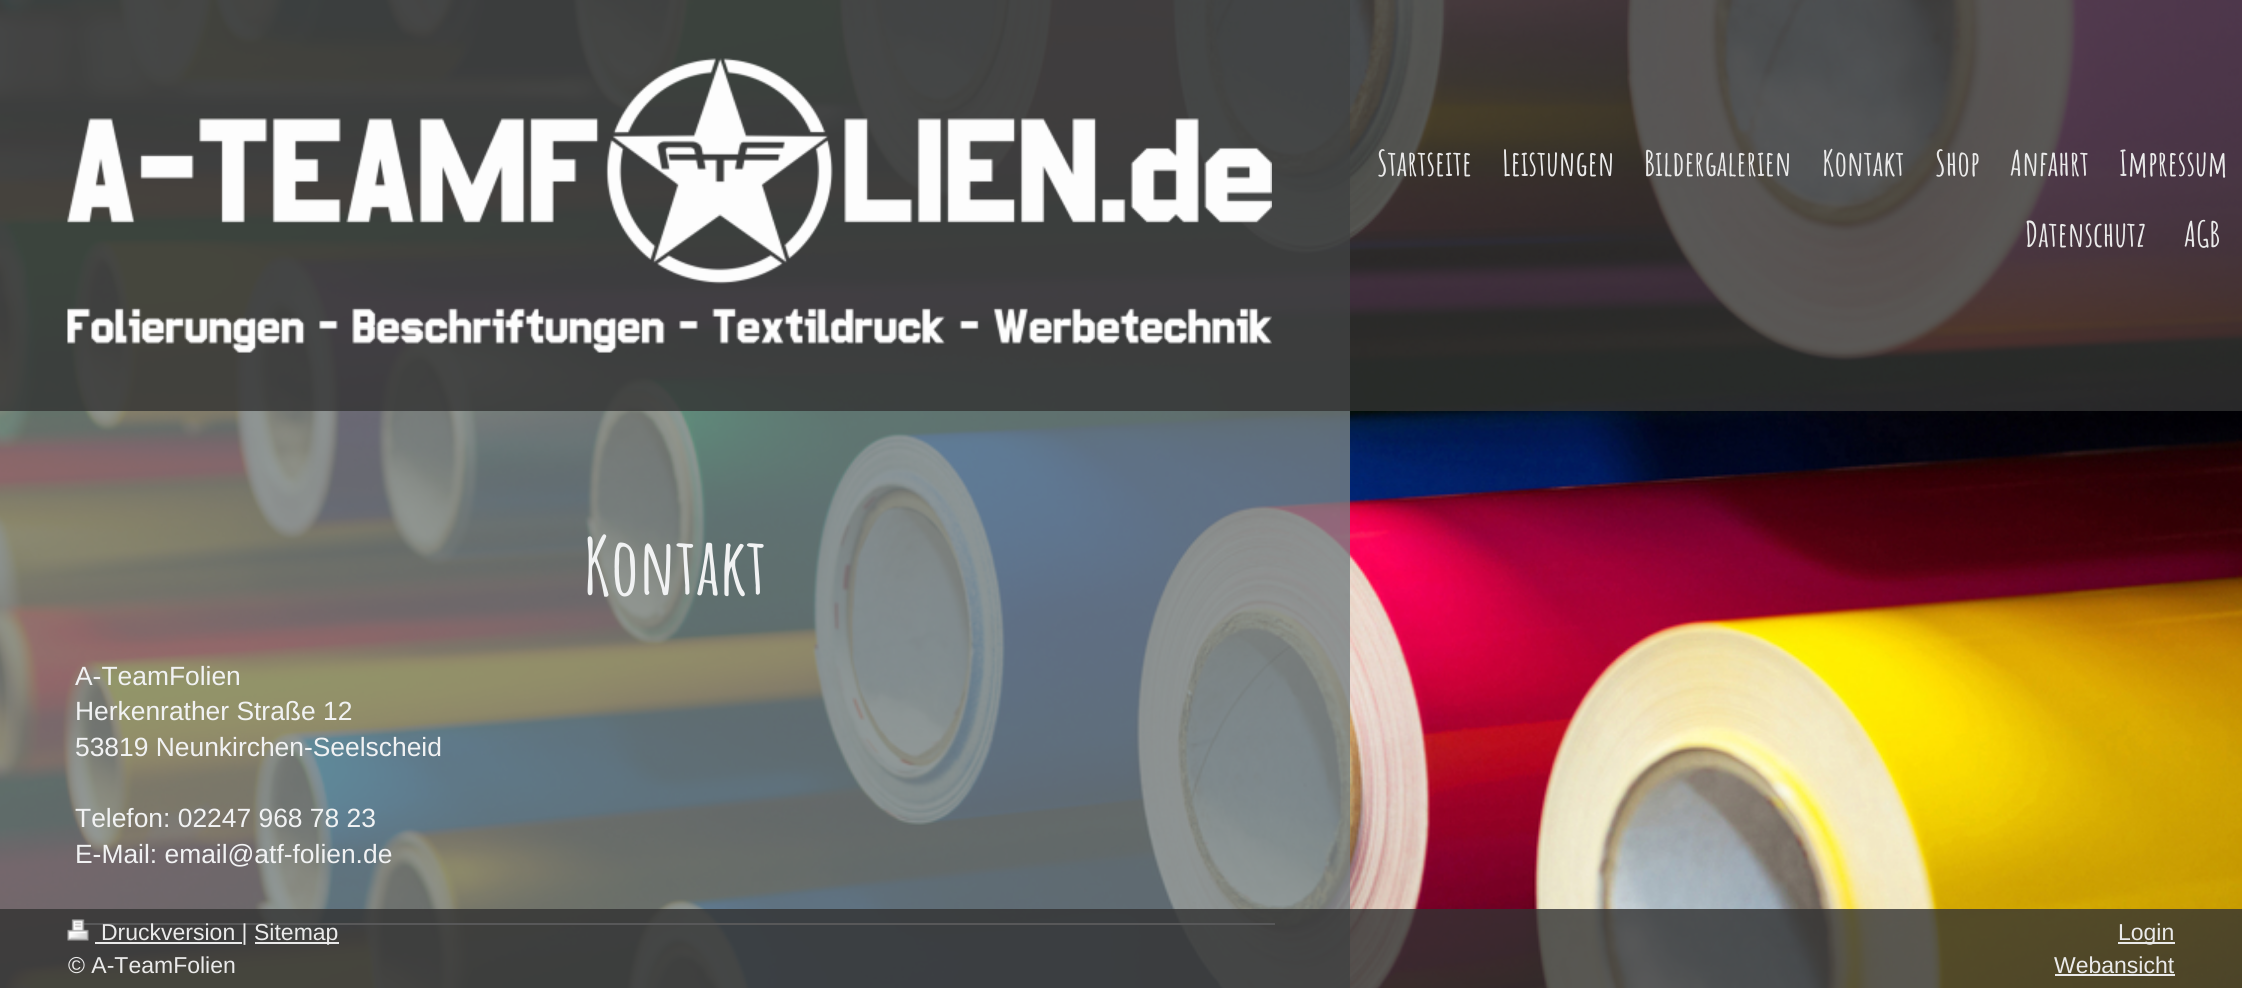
import math
import cairo

surface = cairo.ImageSurface(cairo.FORMAT_RGB24, 2242, 988)
cr = cairo.Context(surface)
options = cairo.FontOptions()
options.set_hint_metrics(cairo.HINT_METRICS_OFF)
options.set_hint_style(cairo.HINT_STYLE_NONE)
cr.set_font_options(options)
cr.set_miter_limit(4)


def rgb(code):
    cr.set_source_rgb(*(v / 255 for v in bytes.fromhex(code[-6:])))


def image(path, x, y, w, h):
    cr.save()
    cr.set_source_surface(cairo.ImageSurface.create_from_png(path), x, y)
    cr.rectangle(x, y, w, h)
    cr.fill()
    cr.restore()


rgb("#ffffff")
cr.paint()
image("img/1.png", 0, 0, 2242, 988)
cr.set_source_rgba(0.467, 0.506, 0.514, 0.8)
cr.rectangle(0, 0, 1350, 988)
cr.fill()
cr.set_source_rgba(0.196, 0.196, 0.196, 0.8)
cr.rectangle(0, 0, 2242, 411)
cr.fill()
image("img/2.png", 67, 58, 1205, 295)
rgb("#f1f2f3")
cr.rectangle(75, 923, 1200, 2)
cr.fill()
cr.set_source_rgba(0.196, 0.196, 0.196, 0.8)
cr.rectangle(0, 909, 2242, 79)
cr.fill()
image("img/3.png", 67, 919, 22, 22)
for x, y, w, h, color in [
    (95, 942, 147, 2, "#eaeaea"),
    (255, 942, 84, 2, "#eaeaea"),
    (2118, 942, 57, 2, "#eaeaea"),
    (2055, 974, 120, 2, "#eaeaea"),
]:
    rgb(color)
    cr.rectangle(x, y, w, h)
    cr.fill()
cr.select_font_face("Amatic SC", cairo.FONT_SLANT_NORMAL, cairo.FONT_WEIGHT_BOLD)
cr.set_font_size(35)
for x, y, s in [
    (1377, 176, "Startseite"),
    (1502, 176, "Leistungen"),
    (1644, 176, "Bildergalerien"),
    (1822, 176, "Kontakt"),
    (1935, 176, "Shop"),
    (2010, 176, "Anfahrt"),
    (2119, 176, "Impressum"),
    (2025, 247, "Datenschutz"),
    (2184, 247, "AGB"),
]:
    cr.move_to(x, y)
    cr.show_text(s)
cr.set_font_size(78)
rgb("#f1f2f3")
cr.move_to(583, 595)
cr.show_text("Kontakt")
cr.select_font_face("Liberation Sans")
cr.set_font_size(26.4)
for x, y, s in [
    (75, 685, "A-TeamFolien"),
    (75, 720, "Herkenrather Straße 12"),
    (75, 756, "53819 Neunkirchen-Seelscheid"),
    (75, 827, "Telefon: 02247 968 78 23"),
    (75, 863, "E-Mail: email@atf-folien.de"),
]:
    cr.move_to(x, y)
    cr.show_text(s)
cr.set_font_size(23)
rgb("#eaeaea")
for x, y, s in [
    (101, 940, "Druckversion |"),
    (254, 940, "Sitemap"),
    (68, 973, "© A-TeamFolien"),
    (2118, 940, "Login"),
    (2054, 973, "Webansicht"),
]:
    cr.move_to(x, y)
    cr.show_text(s)
surface.write_to_png("page.png")
